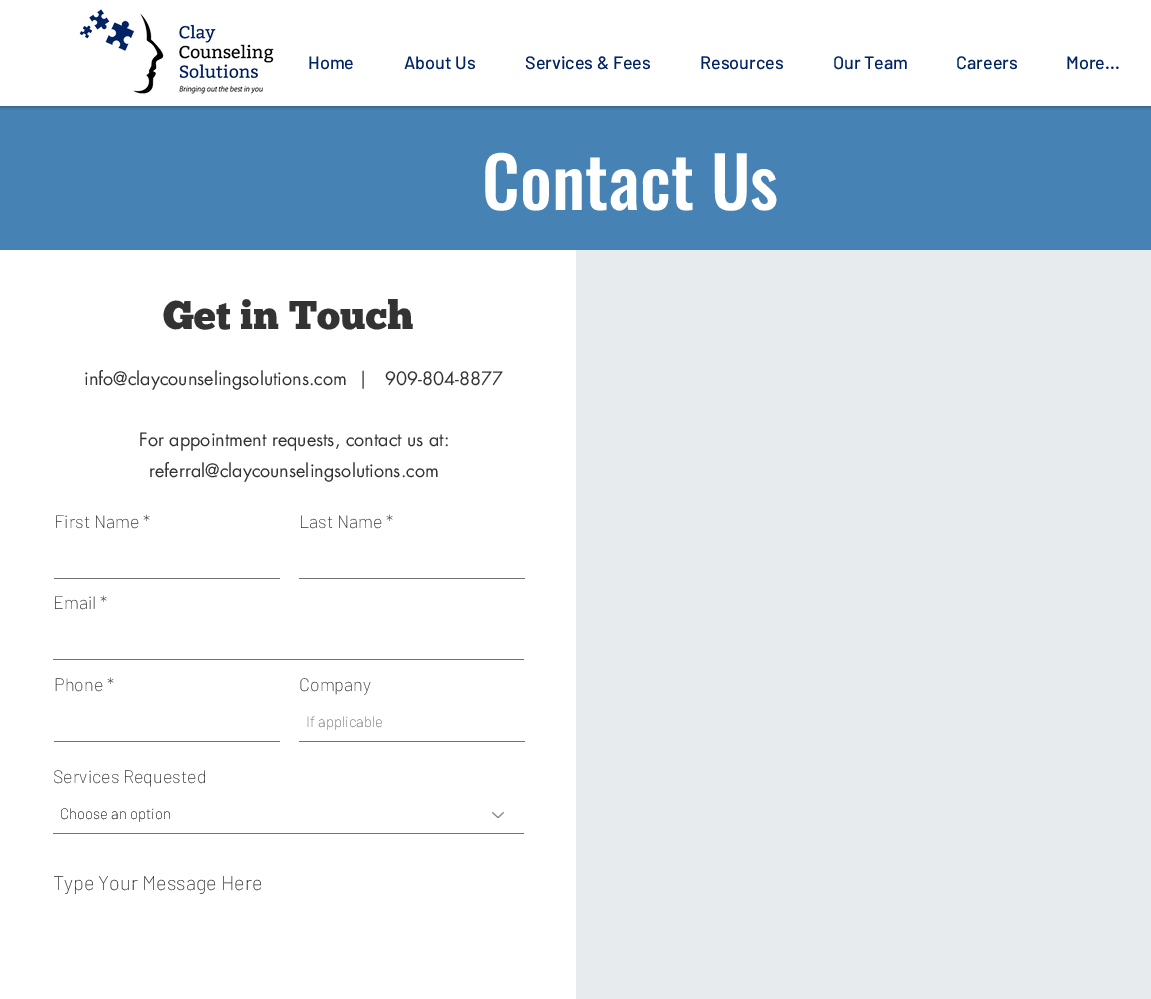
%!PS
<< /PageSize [1151 999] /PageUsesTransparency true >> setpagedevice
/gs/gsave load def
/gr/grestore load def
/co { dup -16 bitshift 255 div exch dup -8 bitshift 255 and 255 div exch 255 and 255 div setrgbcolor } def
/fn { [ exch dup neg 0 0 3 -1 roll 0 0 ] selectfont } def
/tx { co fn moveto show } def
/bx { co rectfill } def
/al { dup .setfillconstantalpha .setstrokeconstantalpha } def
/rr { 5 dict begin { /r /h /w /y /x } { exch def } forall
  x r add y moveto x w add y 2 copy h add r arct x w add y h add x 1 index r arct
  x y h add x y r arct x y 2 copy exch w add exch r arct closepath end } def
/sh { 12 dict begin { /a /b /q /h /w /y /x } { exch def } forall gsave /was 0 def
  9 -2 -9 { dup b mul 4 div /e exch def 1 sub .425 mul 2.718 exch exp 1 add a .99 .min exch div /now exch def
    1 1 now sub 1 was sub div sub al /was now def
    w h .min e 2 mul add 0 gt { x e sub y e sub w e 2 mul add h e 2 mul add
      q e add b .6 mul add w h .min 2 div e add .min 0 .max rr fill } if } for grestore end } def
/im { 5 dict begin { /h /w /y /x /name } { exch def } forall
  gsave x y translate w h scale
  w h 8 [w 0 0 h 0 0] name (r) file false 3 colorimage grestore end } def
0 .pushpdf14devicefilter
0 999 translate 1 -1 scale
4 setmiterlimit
0 0 1151 999 16#FFFFFF bx
0 106 1151 144 16#4682B4 bx
gs
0 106 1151 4 rectclip
16#000000 co
0 0 1151 106 0 2.5 .5 sh
gr
(media/1.raw) 79 9 195 85 im
54 578 226 1 16#737373 bx
299 578 226 1 16#737373 bx
53 659 471 1 16#737373 bx
54 741 226 1 16#737373 bx
299 741 226 1 16#737373 bx
53 833 471 1 16#737373 bx
(media/2.raw) 492 812 12 6 im
576 250 575 749 16#E8EBED bx
(Home) 308 69 /Barlow-Medium 18 16#002365 tx
(About Us) 404 69 /Barlow-Medium 18 16#002365 tx
(Services & Fees) 525 69 /Barlow-Medium 18 16#002365 tx
(Resources) 700 69 /Barlow-Medium 18 16#002365 tx
(Our Team) 833 69 /Barlow-Medium 18 16#002365 tx
(Careers) 956 69 /Barlow-Medium 18 16#002365 tx
(More...) 1066 69 /Barlow-Medium 18 16#002365 tx
(Contact Us) 482 210 /Oswald-Medium 70 16#FFFFFF tx
(Get in Touch) 163 329 /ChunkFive-Regular 40 16#333333 tx
(info@claycounselingsolutions.com  |   909-804-8877) 84 385 /futura-Regular 18 16#333333 tx
(For appointment requests, contact us at:) 139 446 /futura-Regular 18 16#333333 tx
(referral@claycounselingsolutions.com) 149 477 /futura-Regular 18 16#333333 tx
(First Name *) 54 528 /Barlow-ExtraLight 18 16#333333 tx
(Last Name *) 299 528 /Barlow-ExtraLight 18 16#333333 tx
(Email *) 53 609 /Barlow-ExtraLight 18 16#333333 tx
(Phone *) 54 691 /Barlow-ExtraLight 18 16#333333 tx
(Company) 299 691 /Barlow-ExtraLight 18 16#333333 tx
(If applicable) 306 727 /Barlow-ExtraLight 15 16#666666 tx
(Services Requested) 53 783 /Barlow-ExtraLight 18 16#333333 tx
(Choose an option) 60 819 /Barlow-ExtraLight 15 16#000000 tx
(Type Your Message Here) 53 890 /Barlow-ExtraLight 20 16#333333 tx
.poppdf14devicefilter showpage
